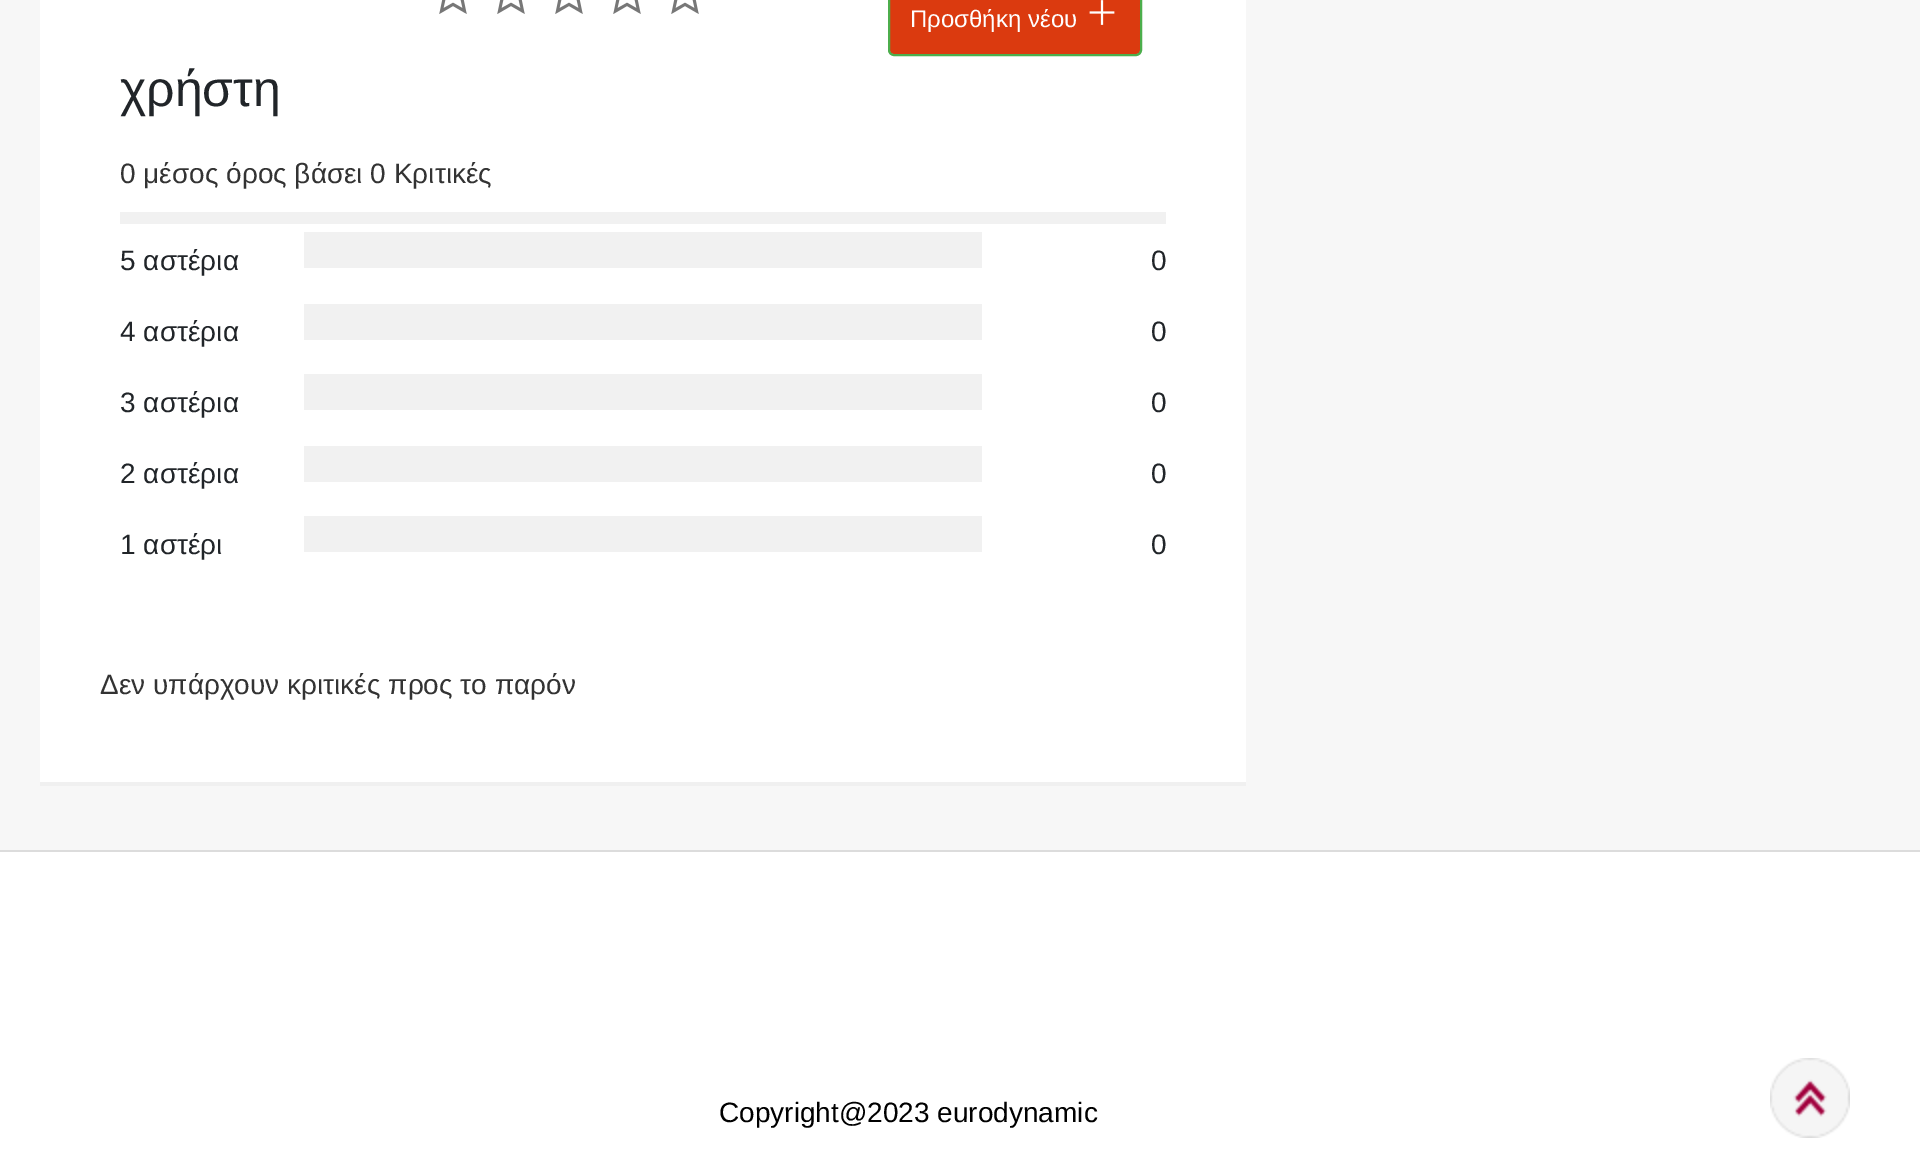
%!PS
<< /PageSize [1920 1152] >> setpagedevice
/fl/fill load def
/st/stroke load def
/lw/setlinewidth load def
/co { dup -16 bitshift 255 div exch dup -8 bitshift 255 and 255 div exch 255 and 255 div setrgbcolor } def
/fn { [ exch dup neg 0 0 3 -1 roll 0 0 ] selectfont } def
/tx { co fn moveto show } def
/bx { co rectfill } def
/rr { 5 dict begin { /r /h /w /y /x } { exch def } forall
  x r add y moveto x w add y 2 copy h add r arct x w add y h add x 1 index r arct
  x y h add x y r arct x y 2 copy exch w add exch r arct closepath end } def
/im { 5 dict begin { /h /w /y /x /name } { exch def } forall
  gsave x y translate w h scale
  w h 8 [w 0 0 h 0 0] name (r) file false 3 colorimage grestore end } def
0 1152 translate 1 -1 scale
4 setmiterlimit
0 0 1920 1152 16#FFFFFF bx
0 0 1920 850 16#F7F7F7 bx
40 782 1206 4 16#F0F0F0 bx
40 0 1206 782 16#FFFFFF bx
16#DB3A0F co
890 -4 250 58 4 rr fl
16#4CAE4C co
2 lw
889 -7 252 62 5 rr st
(media/1.raw) 1089 0 26 25 im
(media/2.raw) 439 0 28 14 im
(media/2.raw) 497 0 28 14 im
(media/2.raw) 555 0 28 14 im
(media/2.raw) 613 0 28 14 im
(media/2.raw) 671 0 28 14 im
120 212 1046 12 16#F1F1F1 bx
304 232 678 36 16#F1F1F1 bx
304 304 678 36 16#F1F1F1 bx
304 374 678 36 16#F1F1F1 bx
304 446 678 36 16#F1F1F1 bx
304 516 678 36 16#F1F1F1 bx
0 850 1920 2 16#DCDCDC bx
(media/3.raw) 1770 1058 80 80 im
(Προσθήκη νέου) 910 27 /LiberationSans-Regular 24 16#FFFFFF tx
(χρήστη) 120 106 /LiberationSans-Regular 50 16#212529 tx
(0 μέσος όρος βάσει 0 Κριτικές) 120 183 /LiberationSans-Regular 28 16#333333 tx
(5 αστέρια) 120 270 /LiberationSans-Regular 28 16#212529 tx
(0) 1151 270 /LiberationSans-Regular 28 16#212529 tx
(4 αστέρια) 120 341 /LiberationSans-Regular 28 16#212529 tx
(0) 1151 341 /LiberationSans-Regular 28 16#212529 tx
(3 αστέρια) 120 412 /LiberationSans-Regular 28 16#212529 tx
(0) 1151 412 /LiberationSans-Regular 28 16#212529 tx
(2 αστέρια) 120 483 /LiberationSans-Regular 28 16#212529 tx
(0) 1151 483 /LiberationSans-Regular 28 16#212529 tx
(1 αστέρι) 120 554 /LiberationSans-Regular 28 16#212529 tx
(0) 1151 554 /LiberationSans-Regular 28 16#212529 tx
(Δεν υπάρχουν κριτικές προς το παρόν) 100 694 /LiberationSans-Regular 28 16#333333 tx
(Copyright@2023 eurodynamic) 719 1122 /LiberationSans-Regular 28 16#000000 tx
showpage
